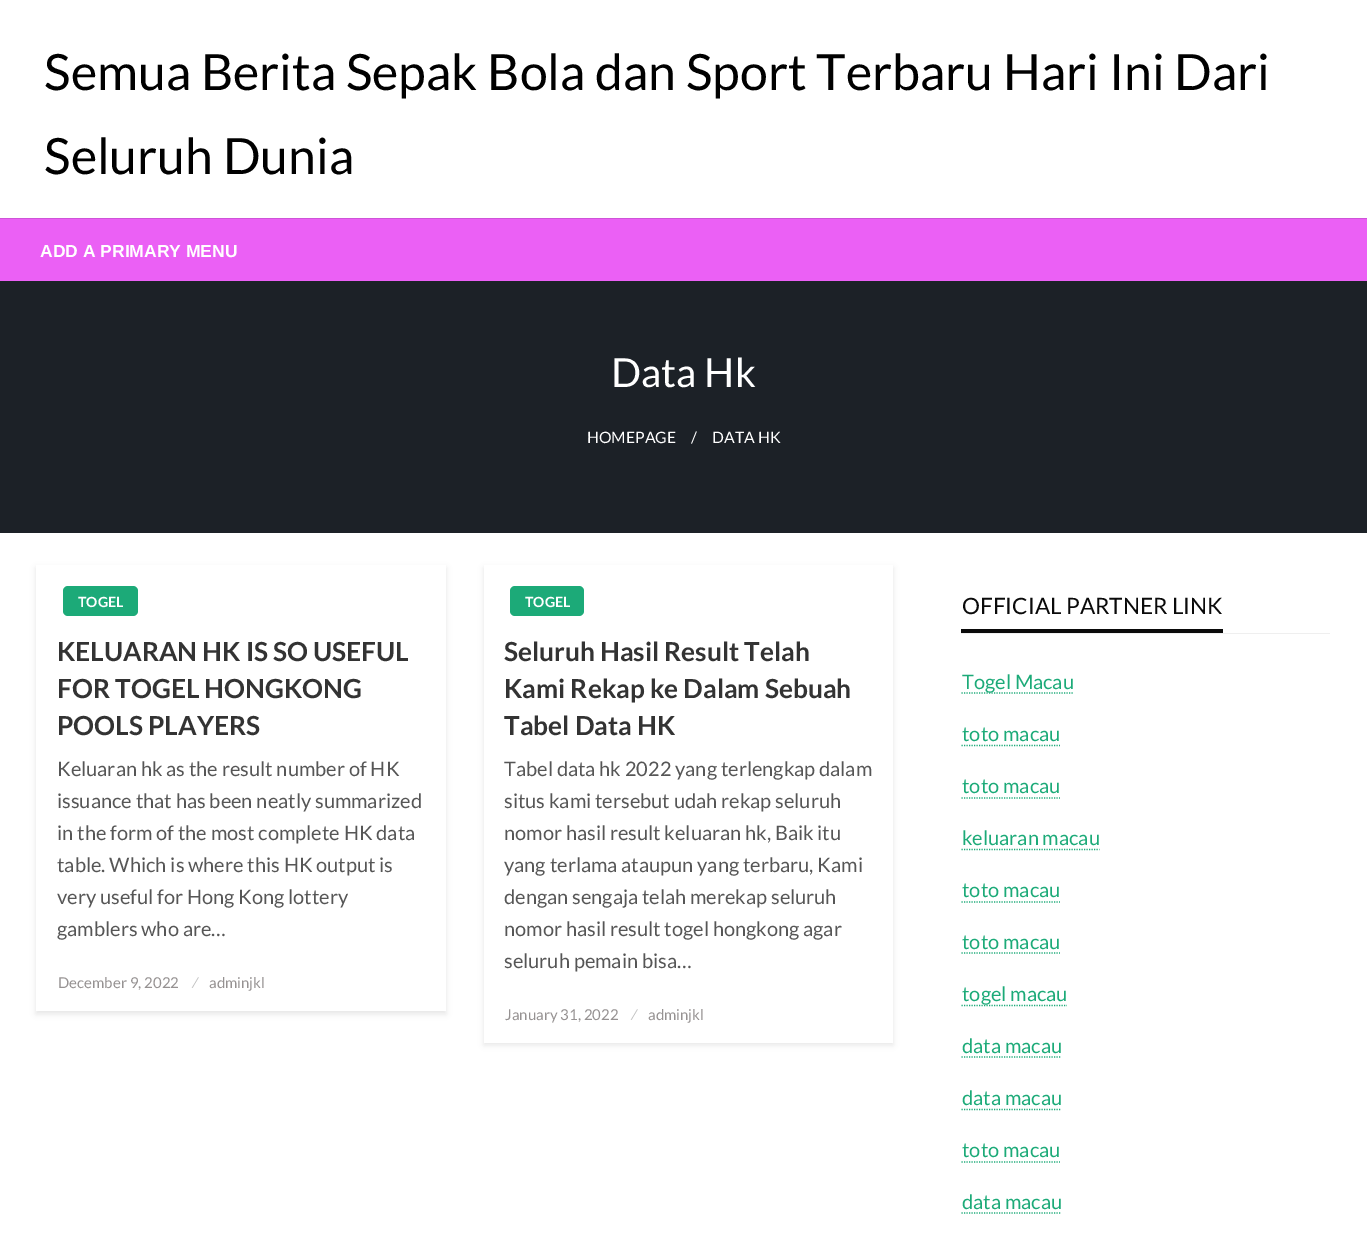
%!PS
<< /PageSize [1367 1241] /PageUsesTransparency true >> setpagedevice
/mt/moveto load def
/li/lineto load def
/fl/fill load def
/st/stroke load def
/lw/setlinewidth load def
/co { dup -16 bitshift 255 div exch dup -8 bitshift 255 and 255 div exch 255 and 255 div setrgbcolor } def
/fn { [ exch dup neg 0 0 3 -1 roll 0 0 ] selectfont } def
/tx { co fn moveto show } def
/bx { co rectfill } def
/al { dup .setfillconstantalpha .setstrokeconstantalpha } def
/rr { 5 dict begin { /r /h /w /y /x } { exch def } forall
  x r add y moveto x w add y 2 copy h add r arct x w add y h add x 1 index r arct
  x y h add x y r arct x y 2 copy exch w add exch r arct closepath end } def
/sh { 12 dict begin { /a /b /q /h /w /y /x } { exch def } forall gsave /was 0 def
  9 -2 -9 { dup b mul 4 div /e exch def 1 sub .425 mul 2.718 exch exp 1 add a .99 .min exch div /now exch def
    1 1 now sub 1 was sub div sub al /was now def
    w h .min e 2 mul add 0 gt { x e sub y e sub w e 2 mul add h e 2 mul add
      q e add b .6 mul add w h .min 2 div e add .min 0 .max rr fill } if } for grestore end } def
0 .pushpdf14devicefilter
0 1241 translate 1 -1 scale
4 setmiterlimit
0 0 1367 1241 16#FFFFFF bx
0 219 1367 62 16#EB60F5 bx
0 218 1367 1 16#CF54D8 bx
0 281 1367 252 16#1C2127 bx
16#000000 co
36 568 410 446 0 3 .1 sh
36 565 410 446 16#FFFFFF bx
16#1CAA78 co
63 586 75 30 5 rr fl
16#000000 co
484 568 409 477 0 3 .1 sh
484 565 409 478 16#FFFFFF bx
16#1CAA78 co
510 586 74 30 5 rr fl
961 633 369 1 16#EFEFEF bx
961 629 262 4 16#0A0A0A bx
16#1CAA78 co
1.2 lw
[1.25 1.25] 0 setdash
961.5 693 mt 1073.5 693 li st
961.5 745.5 mt 1060 745.5 li st
961.5 798 mt 1060 798 li st
961.5 849.5 mt 1099.5 849.5 li st
961.5 902 mt 1060 902 li st
961.5 953 mt 1060 953 li st
961.5 1005.5 mt 1067 1005.5 li st
961.5 1057 mt 1061.5 1057 li st
961.5 1109.5 mt 1061.5 1109.5 li st
961.5 1162 mt 1060 1162 li st
961.5 1213 mt 1061.5 1213 li st
(Semua Berita Sepak Bola dan Sport Terbaru Hari Ini Dari) 44 90 /Lato-Regular 50 16#000000 tx
(Seluruh Dunia) 44 174 /Lato-Regular 50 16#000000 tx
(ADD A PRIMARY MENU) 40 257 /LiberationSans-Bold 17.5 16#FFFFFF tx
(Data Hk) 611 387 /Lato-Regular 40 16#FFFFFF tx
(HOMEPAGE) 587 443 /Lato-Regular 15.75 16#FFFFFF tx
(/) 691 443 /Lato-Regular 15.75 16#FFFFFF tx
(DATA HK) 712 443 /Lato-Regular 15.75 16#FFFFFF tx
(TOGEL) 78 607 /Lato-Bold 14 16#FFFFFF tx
(KELUARAN HK IS SO USEFUL) 57 661 /Lato-Bold 26.25 16#333333 tx
(FOR TOGEL HONGKONG) 57 698 /Lato-Bold 26.25 16#333333 tx
(POOLS PLAYERS) 57 735 /Lato-Bold 26.25 16#333333 tx
(Keluaran hk as the result number of HK) 57 776 /Lato-Regular 20 16#565656 tx
(issuance that has been neatly summarized) 57 808 /Lato-Regular 20 16#565656 tx
(in the form of the most complete HK data) 57 840 /Lato-Regular 20 16#565656 tx
(table. Which is where this HK output is) 57 872 /Lato-Regular 20 16#565656 tx
(very useful for Hong Kong lottery) 57 904 /Lato-Regular 20 16#565656 tx
(gamblers who are…) 57 936 /Lato-Regular 20 16#565656 tx
(December 9, 2022) 58 988 /Lato-Regular 15 16#969292 tx
(⁄) 193 988 /Lato-Regular 15 16#C0C0C0 tx
(adminjkl) 209 988 /Lato-Regular 15 16#969292 tx
(TOGEL) 525 607 /Lato-Bold 14 16#FFFFFF tx
(Seluruh Hasil Result Telah) 504 661 /Lato-Bold 26.25 16#333333 tx
(Kami Rekap ke Dalam Sebuah) 504 698 /Lato-Bold 26.25 16#333333 tx
(Tabel Data HK) 504 735 /Lato-Bold 26.25 16#333333 tx
(Tabel data hk 2022 yang terlengkap dalam) 504 776 /Lato-Regular 20 16#565656 tx
(situs kami tersebut udah rekap seluruh) 504 808 /Lato-Regular 20 16#565656 tx
(nomor hasil result keluaran hk, Baik itu) 504 840 /Lato-Regular 20 16#565656 tx
(yang terlama ataupun yang terbaru, Kami) 504 872 /Lato-Regular 20 16#565656 tx
(dengan sengaja telah merekap seluruh) 504 904 /Lato-Regular 20 16#565656 tx
(nomor hasil result togel hongkong agar) 504 936 /Lato-Regular 20 16#565656 tx
(seluruh pemain bisa…) 504 968 /Lato-Regular 20 16#565656 tx
(January 31, 2022) 505 1020 /Lato-Regular 15 16#969292 tx
(⁄) 632 1020 /Lato-Regular 15 16#C0C0C0 tx
(adminjkl) 648 1020 /Lato-Regular 15 16#969292 tx
(OFFICIAL PARTNER LINK) 962 614 /Lato-Regular 22.5 16#0A0A0A tx
(Togel Macau) 962 689 /Lato-Regular 20 16#1CAA78 tx
(toto macau) 962 741 /Lato-Regular 20 16#1CAA78 tx
(toto macau) 962 793 /Lato-Regular 20 16#1CAA78 tx
(keluaran macau) 962 845 /Lato-Regular 20 16#1CAA78 tx
(toto macau) 962 897 /Lato-Regular 20 16#1CAA78 tx
(toto macau) 962 949 /Lato-Regular 20 16#1CAA78 tx
(togel macau) 962 1001 /Lato-Regular 20 16#1CAA78 tx
(data macau) 962 1053 /Lato-Regular 20 16#1CAA78 tx
(data macau) 962 1105 /Lato-Regular 20 16#1CAA78 tx
(toto macau) 962 1157 /Lato-Regular 20 16#1CAA78 tx
(data macau) 962 1209 /Lato-Regular 20 16#1CAA78 tx
.poppdf14devicefilter showpage
